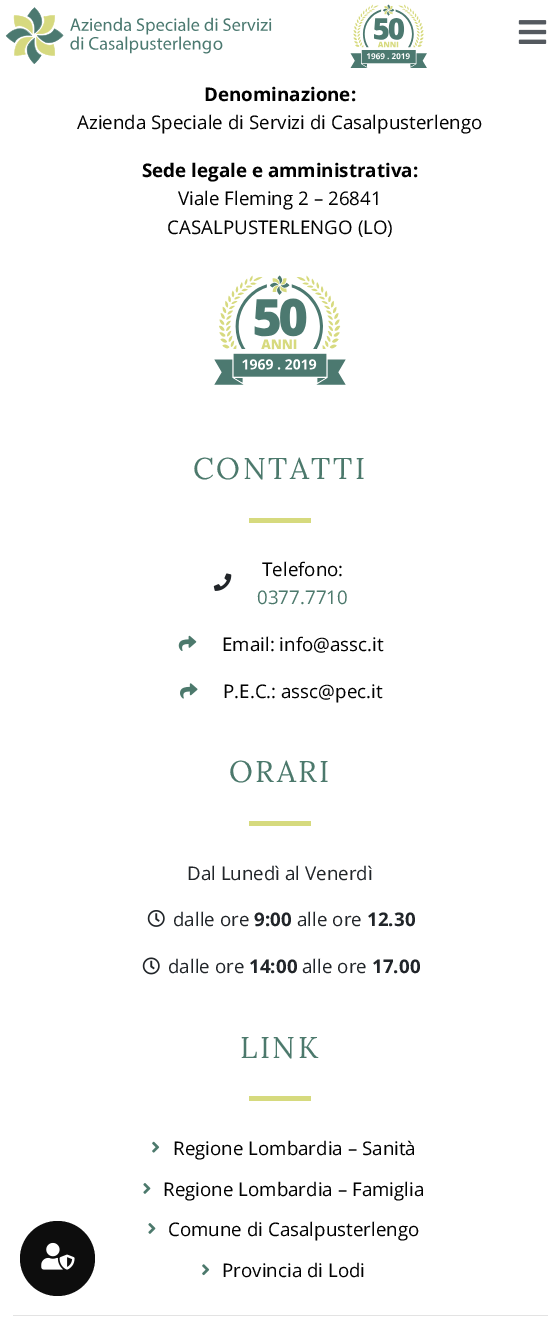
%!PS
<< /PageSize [560 1321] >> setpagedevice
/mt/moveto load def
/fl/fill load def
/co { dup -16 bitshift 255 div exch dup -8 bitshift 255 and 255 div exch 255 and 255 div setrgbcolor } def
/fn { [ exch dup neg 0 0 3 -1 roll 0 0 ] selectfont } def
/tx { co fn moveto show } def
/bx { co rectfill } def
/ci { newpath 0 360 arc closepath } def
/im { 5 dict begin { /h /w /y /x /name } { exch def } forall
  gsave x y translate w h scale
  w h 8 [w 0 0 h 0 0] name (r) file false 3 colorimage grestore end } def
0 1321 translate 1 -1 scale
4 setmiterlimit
0 0 560 1321 16#FFFFFF bx
16#0D0D0D co
57.5 1258.5 37.5 ci fl
(media/1.raw) 41 1242 34 28 im
(media/2.raw) 5 7 267 57 im
(media/3.raw) 350 4 77 64 im
(media/4.raw) 518 20 29 24 im
(media/5.raw) 214 275 132 110 im
249 518 62 5 16#D6DA7E bx
(media/6.raw) 213 573 19 18 im
(media/7.raw) 178 635 19 16 im
(media/8.raw) 180 683 18 16 im
249 821 62 5 16#D6DA7E bx
(media/9.raw) 147 910 18 17 im
(media/10.raw) 142 957 18 18 im
249 1096 62 5 16#D6DA7E bx
(media/11.raw) 152 1141 8 12 im
(media/12.raw) 143 1183 8 11 im
(media/12.raw) 148 1223 8 11 im
(media/13.raw) 202 1264 8 12 im
13 1315 535 1 16#E3E3E3 bx
(Denominazione:) 204 101 /OpenSans-Bold 18.75 16#010101 tx
(Azienda Speciale di Servizi di Casalpusterlengo) 77 129 /OpenSans-Regular 18.75 16#010101 tx
(Sede legale e amministrativa:) 142 177 /OpenSans-Bold 18.75 16#010101 tx
(Viale Fleming 2 – 26841) 178 205 /OpenSans-Regular 18.75 16#010101 tx
(CASALPUSTERLENGO \(LO\)) 167 234 /OpenSans-Regular 18.75 16#010101 tx
/Lora-Regular 30 fn
16#4C796C co
193 479 mt 2.5 0 (CONTATTI) ashow
(Telefono:) 262 576 /OpenSans-Regular 18.75 16#010101 tx
(0377.7710) 257 604 /OpenSans-Regular 18.75 16#4C796C tx
(Email: info@assc.it) 222 651 /OpenSans-Regular 18.75 16#010101 tx
(P.E.C.: assc@pec.it) 223 698 /OpenSans-Regular 18.75 16#010101 tx
/Lora-Regular 30 fn
16#4C796C co
229 782 mt 2.5 0 (ORARI) ashow
(Dal Lunedì al Venerdì) 187 880 /OpenSans-Regular 18.75 16#212529 tx
(dalle ore) 173 926 /OpenSans-Regular 18.75 16#212529 tx
(9:00) 254 926 /OpenSans-Bold 18.75 16#212529 tx
(alle ore) 297 926 /OpenSans-Regular 18.75 16#212529 tx
(12.30) 367 926 /OpenSans-Bold 18.75 16#212529 tx
(dalle ore) 168 973 /OpenSans-Regular 18.75 16#212529 tx
(14:00) 249 973 /OpenSans-Bold 18.75 16#212529 tx
(alle ore) 302 973 /OpenSans-Regular 18.75 16#212529 tx
(17.00) 372 973 /OpenSans-Bold 18.75 16#212529 tx
/Lora-Regular 30 fn
16#4C796C co
240 1058 mt 2.5 0 (LINK) ashow
(Regione Lombardia – Sanità) 173 1155 /OpenSans-Regular 18.75 16#010101 tx
(Regione Lombardia – Famiglia) 163 1196 /OpenSans-Regular 18.75 16#010101 tx
(Comune di Casalpusterlengo) 168 1236 /OpenSans-Regular 18.75 16#010101 tx
(Provincia di Lodi) 222 1277 /OpenSans-Regular 18.75 16#010101 tx
showpage
